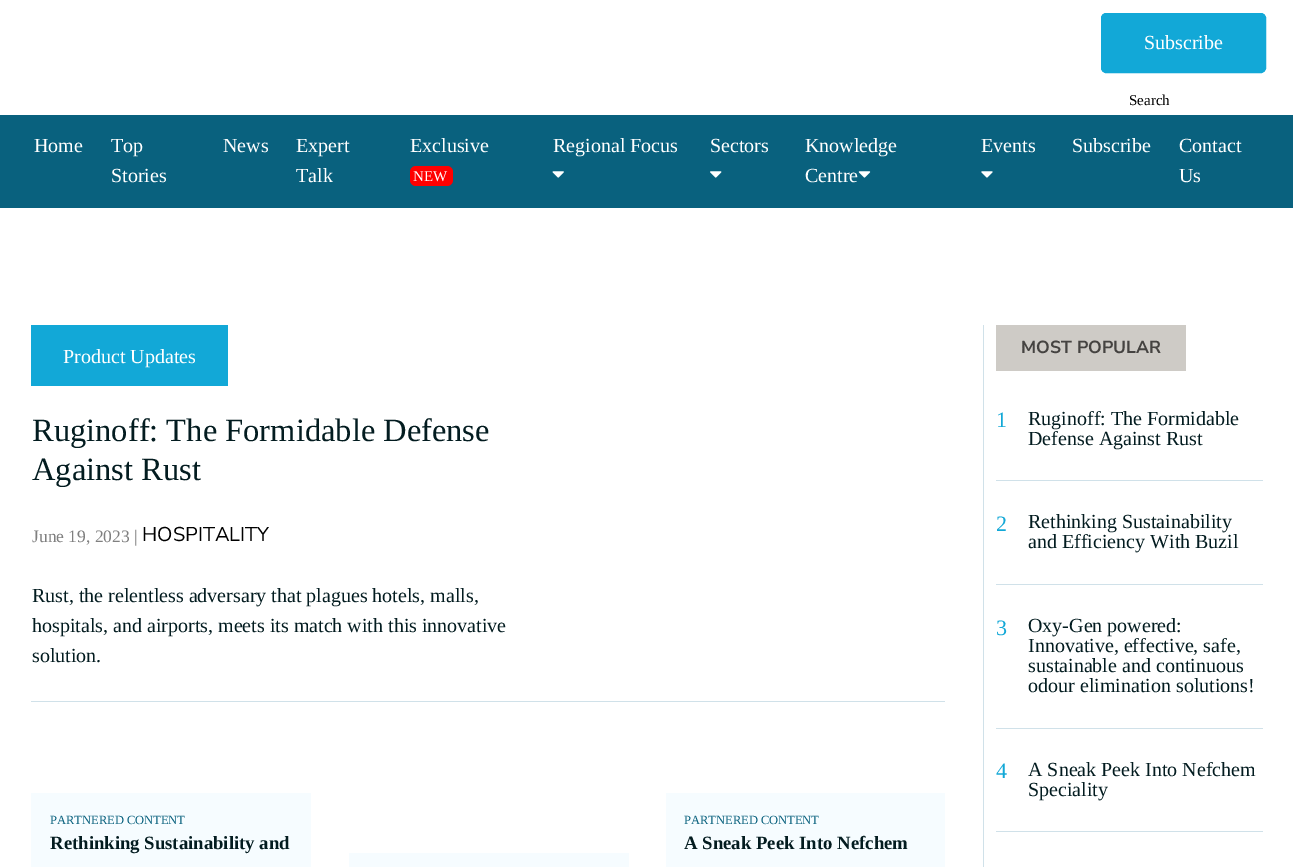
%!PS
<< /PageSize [1293 867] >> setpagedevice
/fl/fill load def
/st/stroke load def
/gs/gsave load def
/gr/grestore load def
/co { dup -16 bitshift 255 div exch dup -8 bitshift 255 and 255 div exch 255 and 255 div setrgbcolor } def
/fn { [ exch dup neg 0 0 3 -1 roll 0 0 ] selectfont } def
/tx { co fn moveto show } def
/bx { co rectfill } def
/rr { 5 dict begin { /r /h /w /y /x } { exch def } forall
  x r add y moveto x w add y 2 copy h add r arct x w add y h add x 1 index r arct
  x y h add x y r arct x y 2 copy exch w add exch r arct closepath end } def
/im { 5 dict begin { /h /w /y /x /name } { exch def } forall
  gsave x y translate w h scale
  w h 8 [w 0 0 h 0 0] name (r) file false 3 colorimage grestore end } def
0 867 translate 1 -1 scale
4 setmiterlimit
0 0 1293 867 16#FFFFFF bx
16#12A8D7 co
1101.5 13.5 164 59 4.5 rr gs fl gr
st
0 115 1293 93 16#09617E bx
16#FF0000 co
410 166 43 20 6 rr fl
(media/1.raw) 552 171 12 7 im
(media/2.raw) 710 171 12 7 im
(media/3.raw) 858 171 13 7 im
(media/4.raw) 981 171 12 7 im
31 325 197 61 16#12A8D7 bx
31 701 914 1 16#D0E1E9 bx
31 793 280 74 16#F6FCFF bx
666 793 279 74 16#F6FCFF bx
349 853 280 14 16#F6FCFF bx
983 325 1 542 16#D0E1E9 bx
996 325 190 46 16#CECBC6 bx
996 480 267 1 16#D0E1E9 bx
996 584 267 1 16#D0E1E9 bx
996 728 267 1 16#D0E1E9 bx
996 831 267 1 16#D0E1E9 bx
(Subscribe) 1144 49 /LiberationSerif-Regular 20 16#FFFFFF tx
(Search) 1129 105 /LiberationSerif-Regular 15 16#000000 tx
(Home) 34 152 /LiberationSerif-Regular 20 16#FFFFFF tx
(Top) 111 152 /LiberationSerif-Regular 20 16#FFFFFF tx
(Stories) 111 182 /LiberationSerif-Regular 20 16#FFFFFF tx
(News) 223 152 /LiberationSerif-Regular 20 16#FFFFFF tx
(Expert) 296 152 /LiberationSerif-Regular 20 16#FFFFFF tx
(Talk) 296 182 /LiberationSerif-Regular 20 16#FFFFFF tx
(Exclusive) 410 152 /LiberationSerif-Regular 20 16#FFFFFF tx
(NEW) 413 181 /LiberationSerif-Regular 15 16#FFFFFF tx
(Regional Focus) 553 152 /LiberationSerif-Regular 20 16#FFFFFF tx
(Sectors) 710 152 /LiberationSerif-Regular 20 16#FFFFFF tx
(Knowledge) 805 152 /LiberationSerif-Regular 20 16#FFFFFF tx
(Centre) 805 182 /LiberationSerif-Regular 20 16#FFFFFF tx
(Events) 981 152 /LiberationSerif-Regular 20 16#FFFFFF tx
(Subscribe) 1072 152 /LiberationSerif-Regular 20 16#FFFFFF tx
(Contact) 1179 152 /LiberationSerif-Regular 20 16#FFFFFF tx
(Us) 1179 182 /LiberationSerif-Regular 20 16#FFFFFF tx
(Product Updates) 63 363 /LiberationSerif-Regular 20 16#FFFFFF tx
(Ruginoff: The Formidable Defense) 32 441 /LiberationSerif-Regular 32.5 16#031C20 tx
(Against Rust) 32 480 /LiberationSerif-Regular 32.5 16#031C20 tx
(June 19, 2023 |) 32 542 /LiberationSerif-Regular 17.5 16#808080 tx
(HOSPITALITY) 142 541 /NunitoSans-Regular 20 16#000000 tx
(Rust, the relentless adversary that plagues hotels, malls,) 32 602 /LiberationSerif-Regular 20 16#031C20 tx
(hospitals, and airports, meets its match with this innovative) 32 632 /LiberationSerif-Regular 20 16#031C20 tx
(solution.) 32 662 /LiberationSerif-Regular 20 16#031C20 tx
(PARTNERED CONTENT) 50 824 /LiberationSerif-Regular 12.5 16#09617E tx
(Rethinking Sustainability and) 50 849 /LiberationSerif-Bold 18.75 16#031C20 tx
(PARTNERED CONTENT) 684 824 /LiberationSerif-Regular 12.5 16#09617E tx
(A Sneak Peek Into Nefchem) 684 849 /LiberationSerif-Bold 18.75 16#031C20 tx
(MOST POPULAR) 1021 353 /NunitoSans-Bold 17.5 16#454341 tx
(1) 996 427 /LiberationSerif-Regular 22 16#12A8D7 tx
(Ruginoff: The Formidable) 1028 425 /LiberationSerif-Regular 20 16#031C20 tx
(Defense Against Rust) 1028 445 /LiberationSerif-Regular 20 16#031C20 tx
(2) 996 531 /LiberationSerif-Regular 22 16#12A8D7 tx
(Rethinking Sustainability) 1028 528 /LiberationSerif-Regular 20 16#031C20 tx
(and Efficiency With Buzil) 1028 548 /LiberationSerif-Regular 20 16#031C20 tx
(3) 996 635 /LiberationSerif-Regular 22 16#12A8D7 tx
(Oxy-Gen powered:) 1028 632 /LiberationSerif-Regular 20 16#031C20 tx
(Innovative, effective, safe,) 1028 652 /LiberationSerif-Regular 20 16#031C20 tx
(sustainable and continuous) 1028 672 /LiberationSerif-Regular 20 16#031C20 tx
(odour elimination solutions!) 1028 692 /LiberationSerif-Regular 20 16#031C20 tx
(4) 996 778 /LiberationSerif-Regular 22 16#12A8D7 tx
(A Sneak Peek Into Nefchem) 1028 776 /LiberationSerif-Regular 20 16#031C20 tx
(Speciality) 1028 796 /LiberationSerif-Regular 20 16#031C20 tx
showpage
